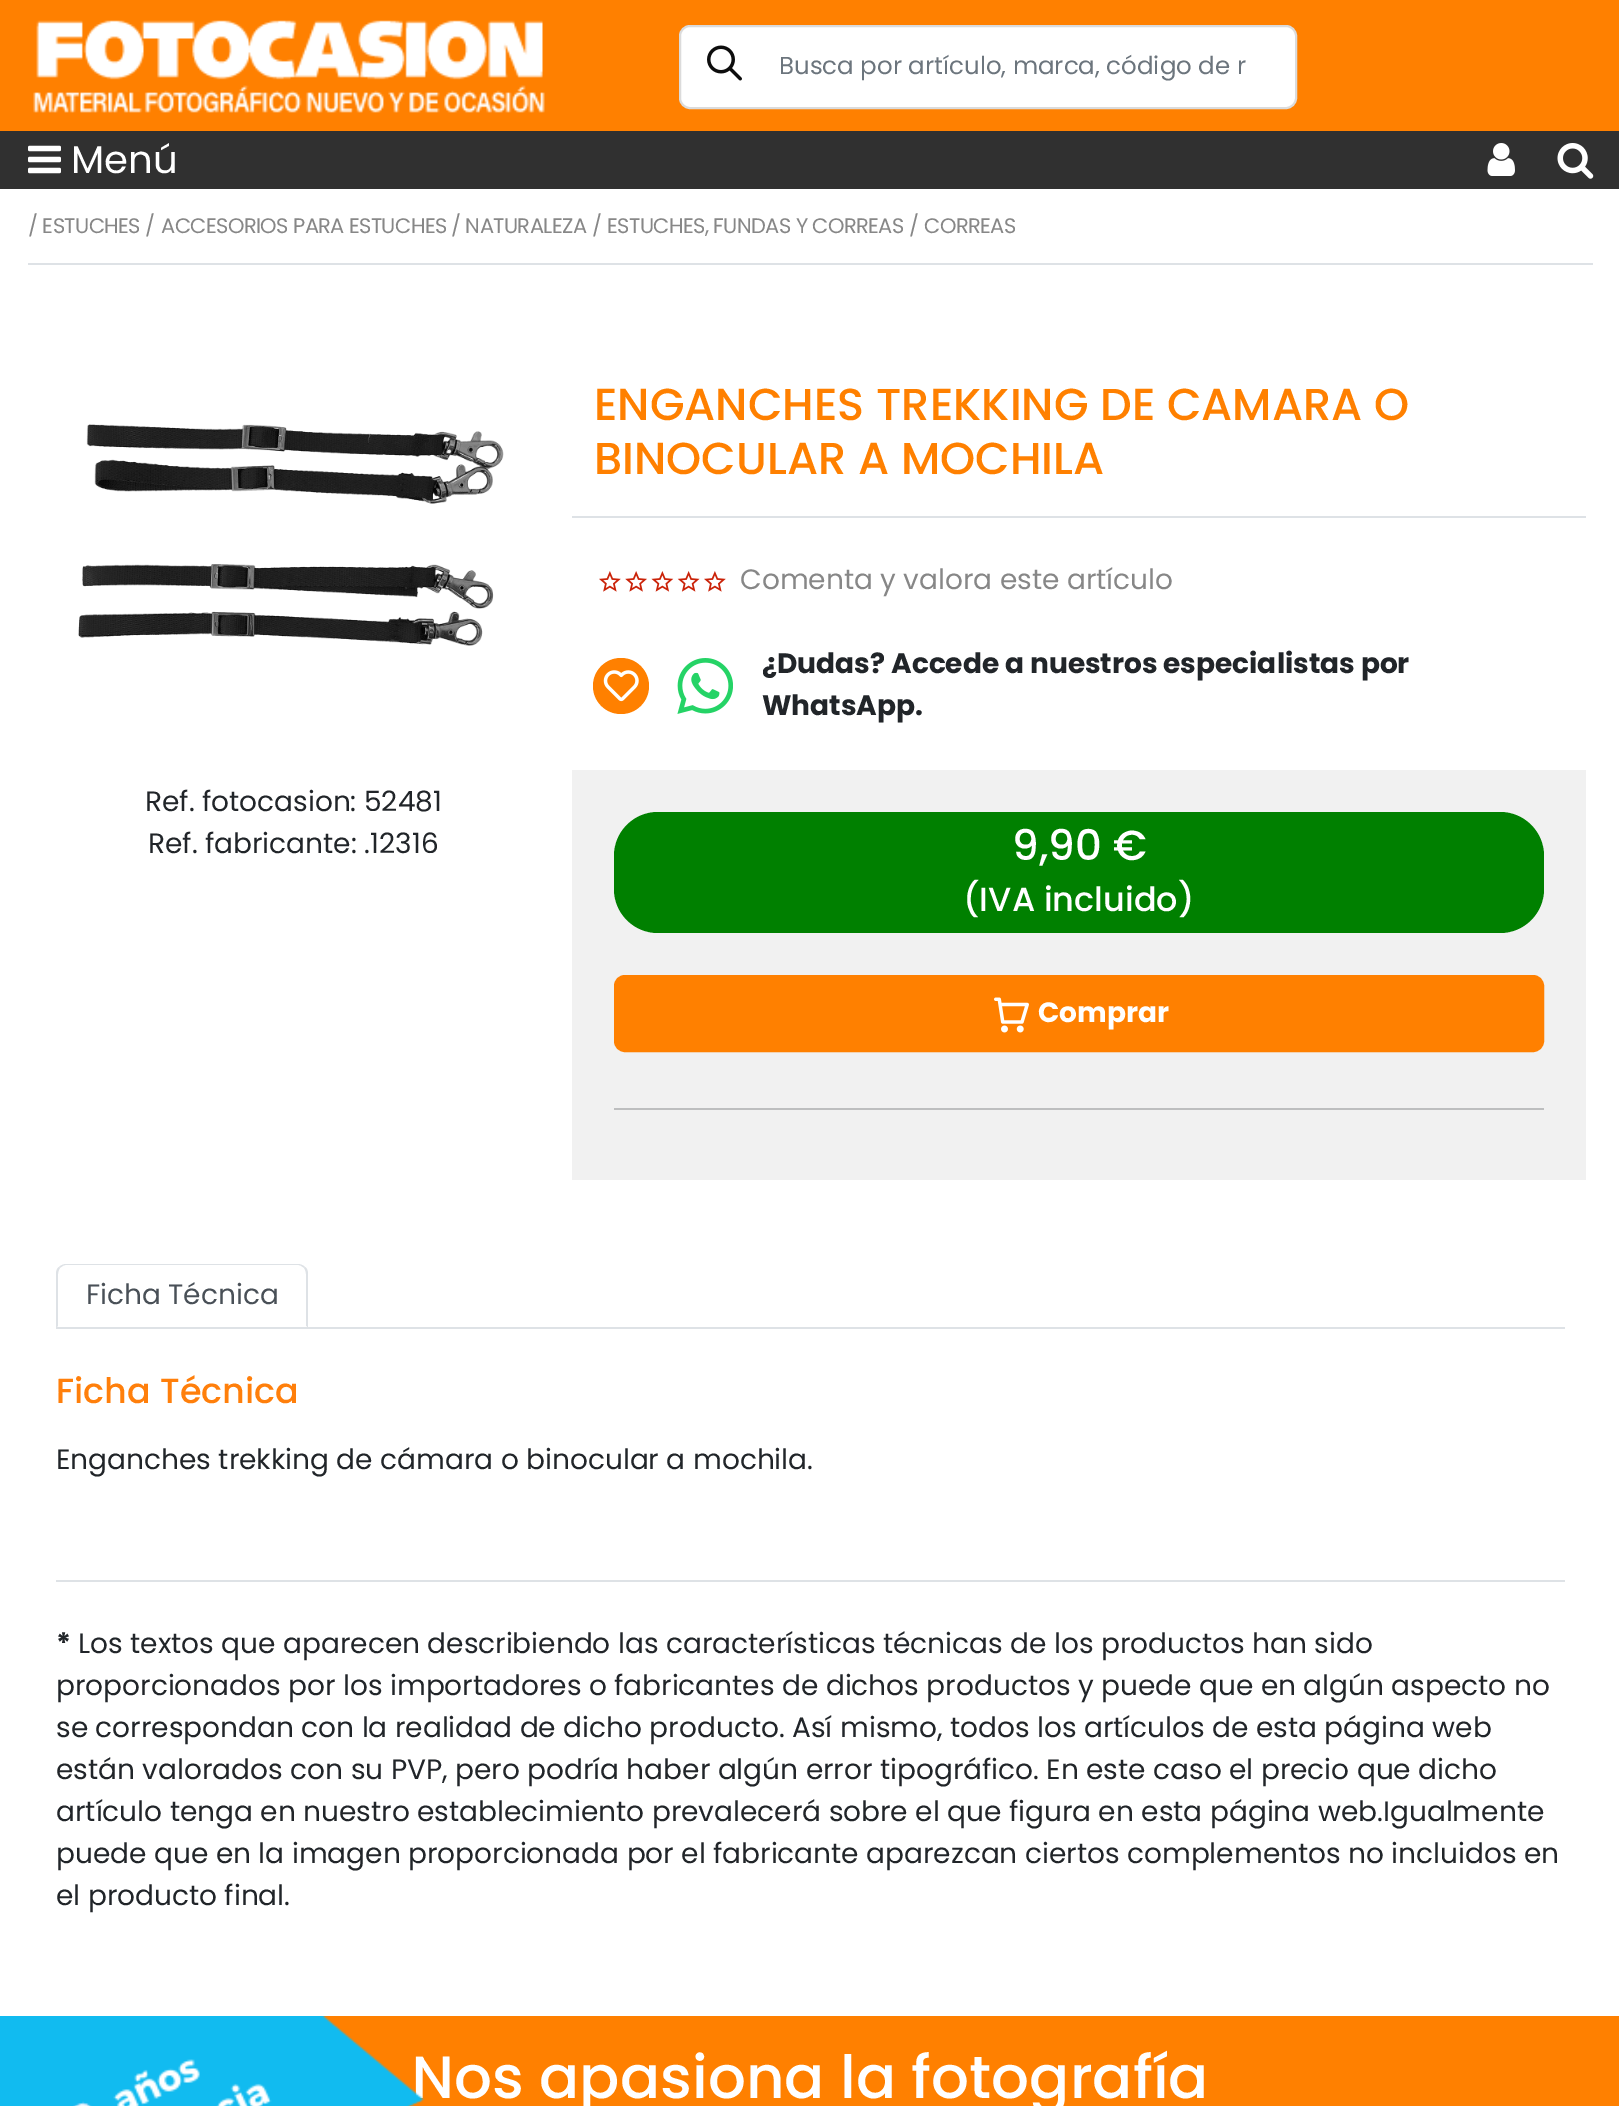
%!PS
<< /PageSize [1619 2106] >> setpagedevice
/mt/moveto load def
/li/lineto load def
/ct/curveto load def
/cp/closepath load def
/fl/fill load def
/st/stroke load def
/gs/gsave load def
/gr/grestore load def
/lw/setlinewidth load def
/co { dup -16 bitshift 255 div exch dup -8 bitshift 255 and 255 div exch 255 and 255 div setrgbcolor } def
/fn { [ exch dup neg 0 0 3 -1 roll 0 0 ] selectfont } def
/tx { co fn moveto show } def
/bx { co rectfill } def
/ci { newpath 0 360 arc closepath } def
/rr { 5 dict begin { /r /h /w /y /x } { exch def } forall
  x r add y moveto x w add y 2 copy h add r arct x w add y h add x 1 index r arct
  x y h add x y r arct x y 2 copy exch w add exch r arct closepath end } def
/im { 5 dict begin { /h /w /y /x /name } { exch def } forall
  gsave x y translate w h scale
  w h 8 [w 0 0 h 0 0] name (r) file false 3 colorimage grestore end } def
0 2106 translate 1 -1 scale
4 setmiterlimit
0 0 1619 2106 16#FFFFFF bx
0 0 1619 131 16#FF8000 bx
(media/1.raw) 33 20 512 93 im
16#FFFFFF co
680 26 616 82 10 rr gs fl gr
16#DBDBDB co
2 lw
st
(media/2.raw) 707 45 35 36 im
0 131 1619 58 16#303030 bx
(media/3.raw) 28 145 33 29 im
(media/4.raw) 1487 143 28 33 im
(media/5.raw) 1557 143 37 36 im
28 263 1565 2 16#DEE2E6 bx
(media/6.raw) 78 424 426 222 im
572 516 1014 2 16#DEE2E6 bx
(media/7.raw) 599 571 127 21 im
16#FF8000 co
621 686 28 ci fl
(media/8.raw) 603 670 36 32 im
(media/9.raw) 677 658 56 56 im
572 770 1014 410 16#F1F1F1 bx
16#008000 co
614 812 930 121 44 rr fl
16#FF8000 co
616 977 926 73 9 rr gs fl gr
4 lw
st
(media/10.raw) 994 997 35 36 im
614 1108 930 2 16#BDBEBF bx
56 1327 1509 2 16#DEE2E6 bx
66 1264 mt 64 1264 61 1265 59 1267 ct 60 1268 li 62 1266 64 1265 66 1265 ct 298 1265 li 300 1265 302 1266 304 1268 ct 305 1267 li 303 1265 300 1264 298 1264 ct cp fl
305 1267 mt 307 1268 308 1271 308 1274 ct 308 1328 li 306 1326 li 306 1274 li 306 1272 305 1269 304 1268 ct cp fl
gs
56 1264 1509 63 rectclip
16#FFFFFF co
308 1328 mt 56 1328 li 58 1326 li 306 1326 li cp fl
gr
56 1274 mt 56 1328 li 58 1326 li 58 1274 li 58 1272 59 1269 60 1268 ct 59 1267 li 57 1268 56 1271 56 1274 ct cp fl
56 1580 1509 2 16#DEE2E6 bx
321 2016 1298 90 16#FF8000 bx
(Busca por artículo, marca, código de r) 779 74 /Poppins-Regular 24.5 16#6C757D tx
(Menú) 71 173 /Poppins-Regular 38.5 16#FFFFFF tx
/Poppins-Regular 21 fn
16#878787 co
28 233 mt -.6 0 (/ ESTUCHES) ashow
(/) 145 233 /Poppins-Regular 21 16#878787 tx
161 233 mt -.6 0 (ACCESORIOS PARA ESTUCHES) ashow
451 233 mt -.6 0 (/ NATURALEZA) ashow
(/) 592 233 /Poppins-Regular 21 16#878787 tx
607 233 mt -.6 0 (ESTUCHES, FUNDAS Y CORREAS) ashow
(/) 909 233 /Poppins-Regular 21 16#878787 tx
924 233 mt -.6 0 (CORREAS) ashow
(Ref. fotocasion: 52481) 145 811 /Poppins-Regular 28 16#212529 tx
(Ref. fabricante: .12316) 148 853 /Poppins-Regular 28 16#212529 tx
(ENGANCHES TREKKING DE CAMARA O) 594 420 /Poppins-Medium 44.75 16#FF8000 tx
(BINOCULAR A MOCHILA) 594 474 /Poppins-Medium 44.75 16#FF8000 tx
(Comenta y valora este artículo) 740 589 /Poppins-Regular 28 16#878787 tx
(¿Dudas? Accede a nuestros especialistas por) 762 673 /Poppins-Bold 28 16#212529 tx
(WhatsApp.) 762 715 /Poppins-Bold 28 16#212529 tx
(9,90 €) 1012 860 /Poppins-Medium 42 16#FFFFFF tx
(\(IVA incluido\)) 963 911 /Poppins-Medium 33.5 16#FFFFFF tx
(Comprar) 1038 1022 /Poppins-Bold 28 16#FFFFFF tx
(Ficha Técnica) 86 1304 /Poppins-Regular 28 16#495057 tx
(Ficha Técnica) 56 1403 /Poppins-Medium 35 16#FF7F0B tx
(Enganches trekking de cámara o binocular a mochila.) 56 1469 /Poppins-Regular 28 16#212529 tx
(*) 56 1653 /Poppins-Bold 28 16#212529 tx
(Los textos que aparecen describiendo las características técnicas de los productos han sido) 78 1653 /Poppins-Regular 28 16#212529 tx
(proporcionados por los importadores o fabricantes de dichos productos y puede que en algún aspecto no) 56 1695 /Poppins-Regular 28 16#212529 tx
(se correspondan con la realidad de dicho producto. Así mismo, todos los artículos de esta página web) 56 1737 /Poppins-Regular 28 16#212529 tx
(están valorados con su PVP, pero podría haber algún error tipográfico. En este caso el precio que dicho) 56 1779 /Poppins-Regular 28 16#212529 tx
(artículo tenga en nuestro establecimiento prevalecerá sobre el que figura en esta página web.Igualmente) 56 1821 /Poppins-Regular 28 16#212529 tx
(puede que en la imagen proporcionada por el fabricante aparezcan ciertos complementos no incluidos en) 56 1863 /Poppins-Regular 28 16#212529 tx
(el producto final.) 56 1905 /Poppins-Regular 28 16#212529 tx
(Nos apasiona la fotografía) 411 2098 /Poppins-Medium 59.5 16#FFFFFF tx
(media/11.raw) 0 2016 424 90 im
showpage
